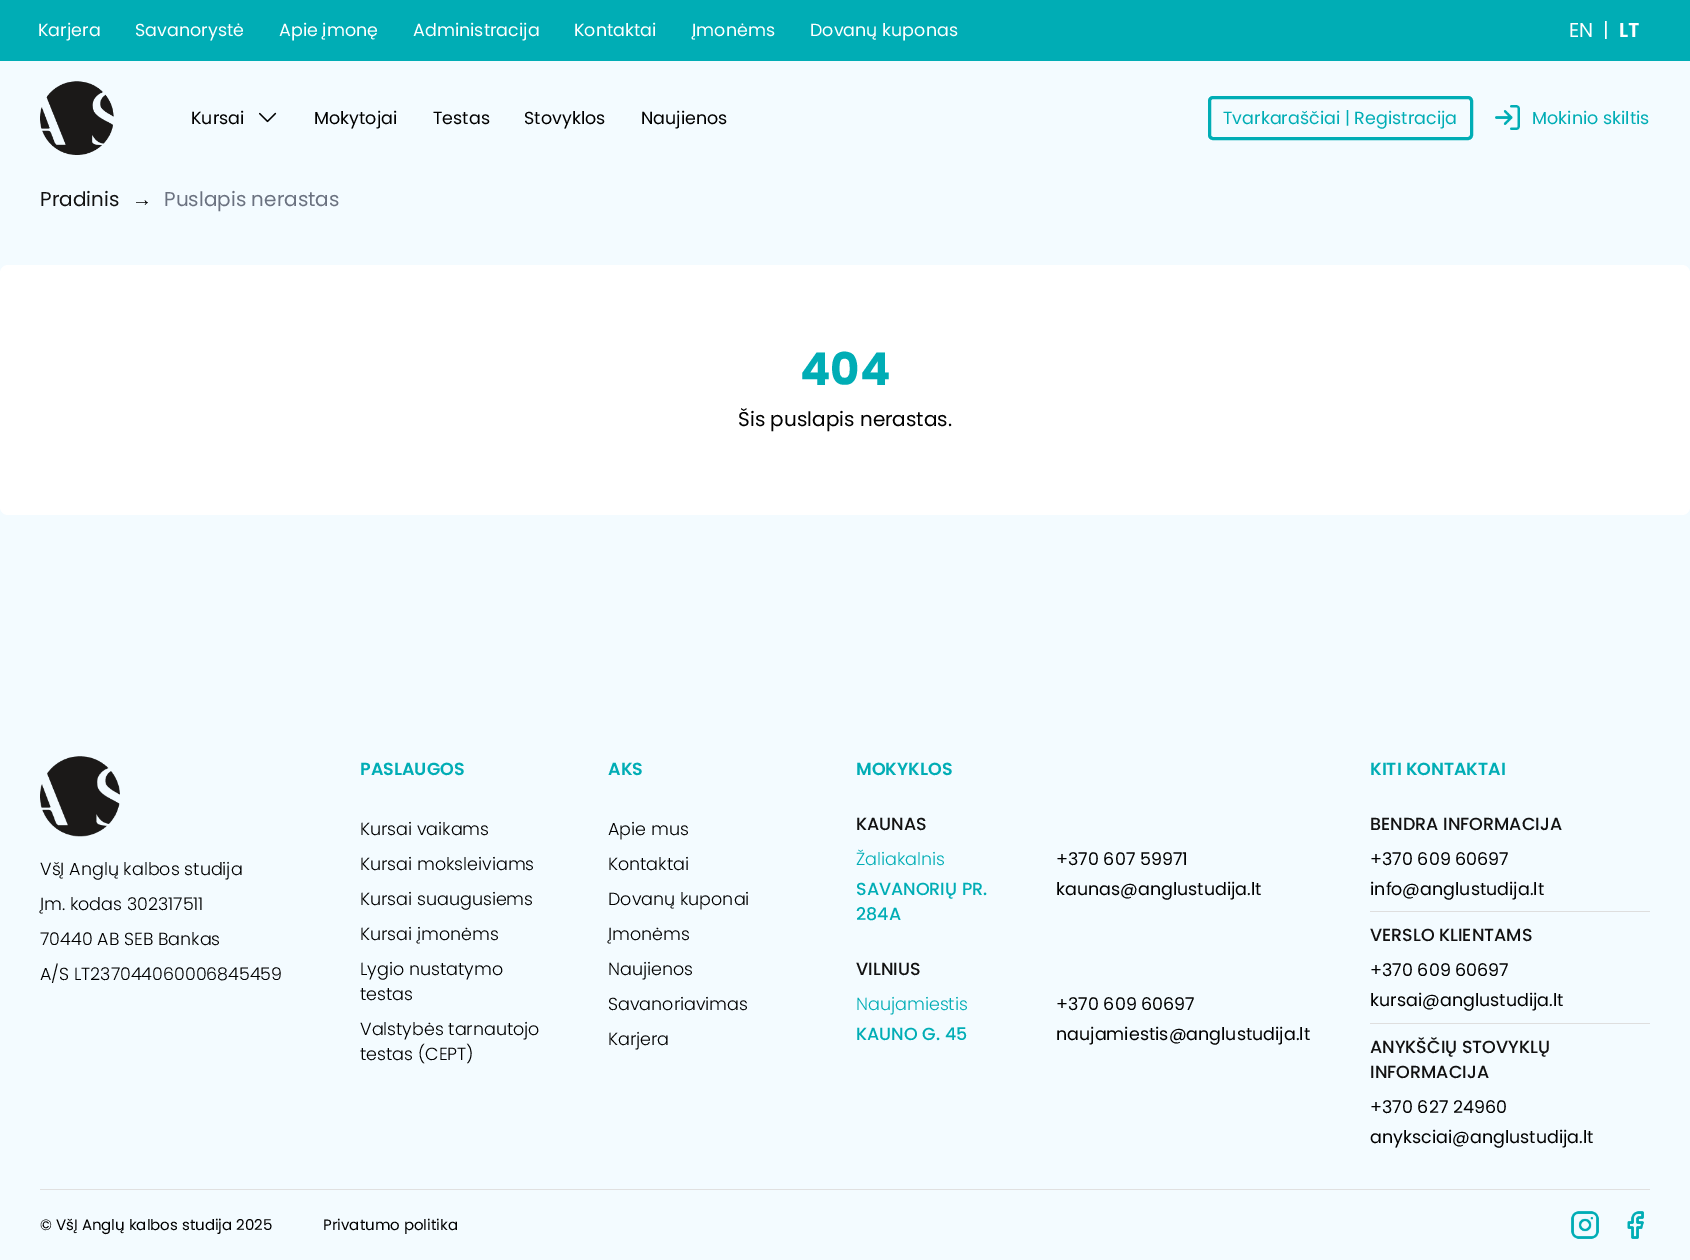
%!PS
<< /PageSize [1690 1260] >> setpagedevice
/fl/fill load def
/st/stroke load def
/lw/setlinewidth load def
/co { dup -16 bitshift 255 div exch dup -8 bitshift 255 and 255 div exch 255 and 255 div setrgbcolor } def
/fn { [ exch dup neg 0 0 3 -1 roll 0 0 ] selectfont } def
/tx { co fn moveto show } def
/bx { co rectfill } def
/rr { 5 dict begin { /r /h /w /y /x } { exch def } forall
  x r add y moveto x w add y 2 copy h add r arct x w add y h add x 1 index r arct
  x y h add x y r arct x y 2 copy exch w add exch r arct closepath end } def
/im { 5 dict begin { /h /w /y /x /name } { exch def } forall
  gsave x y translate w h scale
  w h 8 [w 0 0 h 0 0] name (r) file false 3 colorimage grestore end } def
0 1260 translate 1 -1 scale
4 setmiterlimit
0 0 1690 1260 16#F3FBFF bx
0 0 1690 61 16#00ADB5 bx
(media/1.raw) 40 81 74 74 im
(media/2.raw) 259 112 18 11 im
3 lw
1209.5 97.5 262 41 3.5 rr st
(media/3.raw) 1495 105 25 25 im
16#FFFFFF co
0 265 1690 250 8 rr fl
(media/4.raw) 40 756 80 81 im
1370 911 280 1 16#DEDEDE bx
1370 1023 280 1 16#DEDEDE bx
40 1189 1610 1 16#E0E0E0 bx
(media/5.raw) 1571 1211 28 28 im
(media/6.raw) 1627 1211 17 28 im
(Karjera) 38 36 /Poppins-Regular 17.5 16#FFFFFF tx
(Savanorystė) 135 36 /Poppins-Regular 17.5 16#FFFFFF tx
(Apie įmonę) 279 36 /Poppins-Regular 17.5 16#FFFFFF tx
(Administracija) 413 36 /Poppins-Regular 17.5 16#FFFFFF tx
(Kontaktai) 574 36 /Poppins-Regular 17.5 16#FFFFFF tx
(Įmonėms) 692 36 /Poppins-Regular 17.5 16#FFFFFF tx
(Dovanų kuponas) 810 36 /Poppins-Regular 17.5 16#FFFFFF tx
(EN) 1569 37 /Poppins-Regular 20 16#FFFFFF tx
(|) 1603 37 /Poppins-Regular 20 16#FFFFFF tx
(LT) 1619 37 /Poppins-SemiBold 20 16#FFFFFF tx
(Kursai) 191 124 /Poppins-Regular 17.5 16#000000 tx
(Mokytojai) 314 124 /Poppins-Regular 17.5 16#000000 tx
(Testas) 433 124 /Poppins-Regular 17.5 16#000000 tx
(Stovyklos) 524 124 /Poppins-Regular 17.5 16#000000 tx
(Naujienos) 641 124 /Poppins-Regular 17.5 16#000000 tx
(Tvarkaraščiai | Registracija) 1223 124 /Poppins-Regular 17.5 16#00ADB5 tx
(Mokinio skiltis) 1532 124 /Poppins-Regular 17.5 16#00ADB5 tx
(Pradinis) 40 206 /Poppins-Regular 20 16#121212 tx
(→) 132 206 /LiberationSans-Regular 20 16#000000 tx
(Puslapis nerastas) 164 206 /Poppins-Regular 20 16#6B7280 tx
(404) 800 385 /Poppins-Bold 45 16#00ADB5 tx
(Šis puslapis nerastas.) 738 426 /Poppins-Regular 20 16#000000 tx
(VšĮ Anglų kalbos studija) 40 875 /Poppins-Light 17.5 16#000000 tx
(Įm. kodas 302317511) 40 910 /Poppins-Light 17.5 16#000000 tx
(70440 AB SEB Bankas) 40 945 /Poppins-Light 17.5 16#000000 tx
(A/S LT237044060006845459) 40 980 /Poppins-Light 17.5 16#000000 tx
(PASLAUGOS) 360 775 /Poppins-SemiBold 17.5 16#00ADB5 tx
(Kursai vaikams) 360 835 /Poppins-Light 17.5 16#000000 tx
(Kursai moksleiviams) 360 870 /Poppins-Light 17.5 16#000000 tx
(Kursai suaugusiems) 360 905 /Poppins-Light 17.5 16#000000 tx
(Kursai įmonėms) 360 940 /Poppins-Light 17.5 16#000000 tx
(Lygio nustatymo) 360 975 /Poppins-Light 17.5 16#000000 tx
(testas) 360 1000 /Poppins-Light 17.5 16#000000 tx
(Valstybės tarnautojo) 360 1035 /Poppins-Light 17.5 16#000000 tx
(testas \(CEPT\)) 360 1060 /Poppins-Light 17.5 16#000000 tx
(AKS) 608 775 /Poppins-SemiBold 17.5 16#00ADB5 tx
(Apie mus) 608 835 /Poppins-Light 17.5 16#000000 tx
(Kontaktai) 608 870 /Poppins-Light 17.5 16#000000 tx
(Dovanų kuponai) 608 905 /Poppins-Light 17.5 16#000000 tx
(Įmonėms) 608 940 /Poppins-Light 17.5 16#000000 tx
(Naujienos) 608 975 /Poppins-Light 17.5 16#000000 tx
(Savanoriavimas) 608 1010 /Poppins-Light 17.5 16#000000 tx
(Karjera) 608 1045 /Poppins-Light 17.5 16#000000 tx
(MOKYKLOS) 856 775 /Poppins-SemiBold 17.5 16#00ADB5 tx
(KAUNAS) 856 830 /Poppins-Medium 17.5 16#121212 tx
(Žaliakalnis) 856 865 /Poppins-Light 17.5 16#00ADB5 tx
(SAVANORIŲ PR.) 856 895 /Poppins-Medium 17.5 16#00ADB5 tx
(284A) 856 920 /Poppins-Medium 17.5 16#00ADB5 tx
(+370 607 59971) 1056 865 /Poppins-Regular 17.5 16#000000 tx
(kaunas@anglustudija.lt) 1056 895 /Poppins-Regular 17.5 16#000000 tx
(VILNIUS) 856 975 /Poppins-Medium 17.5 16#121212 tx
(Naujamiestis) 856 1010 /Poppins-Light 17.5 16#00ADB5 tx
(KAUNO G. 45) 856 1040 /Poppins-Medium 17.5 16#00ADB5 tx
(+370 609 60697) 1056 1010 /Poppins-Regular 17.5 16#000000 tx
(naujamiestis@anglustudija.lt) 1056 1040 /Poppins-Regular 17.5 16#000000 tx
(KITI KONTAKTAI) 1370 775 /Poppins-SemiBold 17.5 16#00ADB5 tx
(BENDRA INFORMACIJA) 1370 830 /Poppins-Medium 17.5 16#121212 tx
(+370 609 60697) 1370 865 /Poppins-Regular 17.5 16#000000 tx
(info@anglustudija.lt) 1370 895 /Poppins-Regular 17.5 16#000000 tx
(VERSLO KLIENTAMS) 1370 941 /Poppins-Medium 17.5 16#121212 tx
(+370 609 60697) 1370 976 /Poppins-Regular 17.5 16#000000 tx
(kursai@anglustudija.lt) 1370 1006 /Poppins-Regular 17.5 16#000000 tx
(ANYKŠČIŲ STOVYKLŲ) 1370 1053 /Poppins-Medium 17.5 16#121212 tx
(INFORMACIJA) 1370 1078 /Poppins-Medium 17.5 16#121212 tx
(+370 627 24960) 1370 1113 /Poppins-Regular 17.5 16#000000 tx
(anyksciai@anglustudija.lt) 1370 1143 /Poppins-Regular 17.5 16#000000 tx
(© VšĮ Anglų kalbos studija 2025) 40 1230 /Poppins-Regular 15 16#000000 tx
(Privatumo politika) 323 1230 /Poppins-Regular 15 16#000000 tx
showpage
